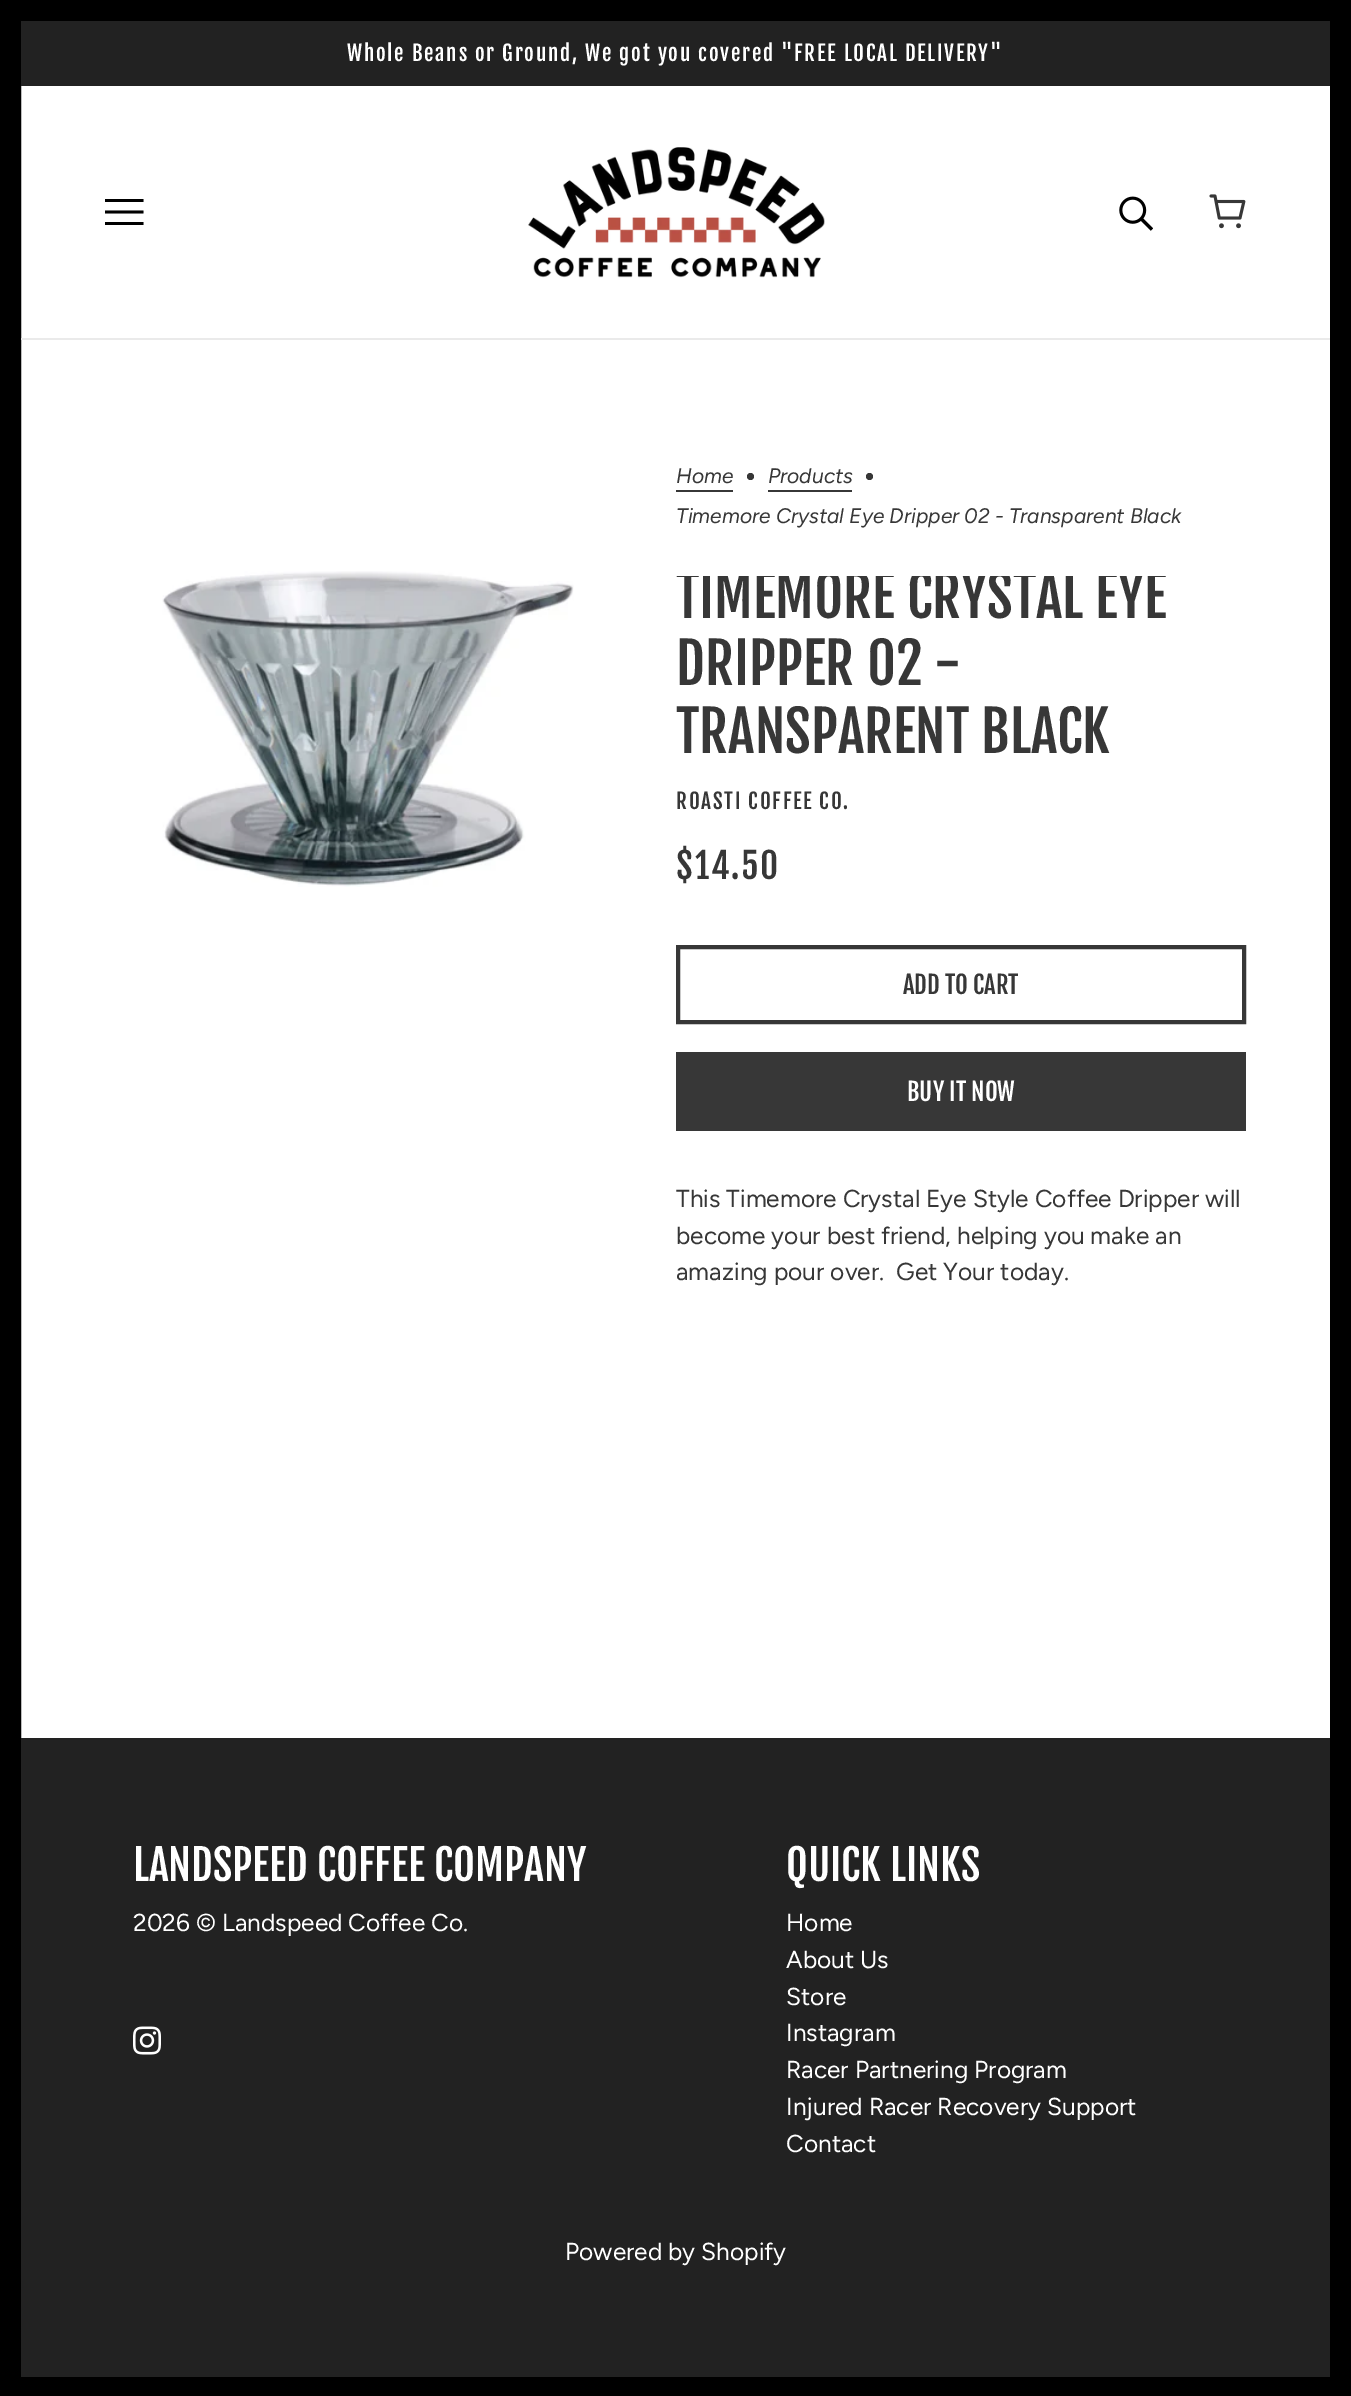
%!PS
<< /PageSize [1351 2396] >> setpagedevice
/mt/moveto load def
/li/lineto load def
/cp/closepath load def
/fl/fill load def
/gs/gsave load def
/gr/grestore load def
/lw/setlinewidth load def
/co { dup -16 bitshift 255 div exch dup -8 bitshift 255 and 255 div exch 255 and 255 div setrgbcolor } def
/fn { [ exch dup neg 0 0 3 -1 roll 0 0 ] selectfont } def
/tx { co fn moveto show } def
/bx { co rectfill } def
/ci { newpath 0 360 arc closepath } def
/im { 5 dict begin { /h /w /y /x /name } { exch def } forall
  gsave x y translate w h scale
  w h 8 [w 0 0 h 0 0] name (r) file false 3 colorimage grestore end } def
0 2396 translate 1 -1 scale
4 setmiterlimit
0 0 1351 2396 16#FFFFFF bx
16#000000 co
21 lw
10.5 10.5 1330 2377 rectstroke
21 21 1309 65 16#222222 bx
21 338 1309 2 16#EAEAEA bx
16#000000 co
105 202 mt 105 199 li 143.5 199 li 143.5 202 li cp 105 213.5 mt 105 210.5 li 143.5 210.5 li 143.5 213.5 li cp 105 225 mt 105 222 li 143.5 222 li 143.5 225 li cp fl
(media/1.raw) 528 147 297 131 im
(media/2.raw) 1119 196 34 35 im
(media/3.raw) 1209 194 37 35 im
(media/4.raw) 162 571 412 316 im
676 490 57 2 16#373737 bx
750.5 476.5 3.5 ci fl
768 490 84 2 16#373737 bx
869.5 476.5 3.5 ci fl
4 lw
678 947 566 75 rectstroke
676 1052 570 79 16#373737 bx
21 1738 1309 639 16#222222 bx
(media/5.raw) 133 2026 28 29 im
/FjallaOne-Regular 21 fn
16#FFFFFF co
347 61 mt 1.75 0 (Whole Beans or Ground, We got you covered "FREE LOCAL DELIVERY") ashow
(Home) 676 483 /Figtree-Italic 21 16#373737 tx
(Products) 768 483 /Figtree-Italic 21 16#373737 tx
(Timemore Crystal Eye Dripper 02 - Transparent Black) 676 523 /Figtree-Italic 21 16#373737 tx
gs
676 576 570 178 rectclip
(TIMEMORE CRYSTAL EYE) 676 618 /FjallaOne-Regular 56 16#373737 tx
gr
(DRIPPER 02 -) 676 685 /FjallaOne-Regular 56 16#373737 tx
(TRANSPARENT BLACK) 676 753 /FjallaOne-Regular 56 16#373737 tx
/FjallaOne-Regular 21 fn
676 809 mt 1.75 0 (ROASTI COFFEE CO.) ashow
/FjallaOne-Regular 35 fn
676 879 mt 1.75 0 ($14.50) ashow
(ADD TO CART) 903 994 /FjallaOne-Regular 24.5 16#373737 tx
(BUY IT NOW) 907 1101 /FjallaOne-Regular 24.5 16#FFFFFF tx
(This Timemore Crystal Eye Style Coffee Dripper will) 676 1207 /Figtree-Regular 24.5 16#373737 tx
(become your best friend, helping you make an) 676 1244 /Figtree-Regular 24.5 16#373737 tx
(amazing pour over.  Get Your today.) 676 1280 /Figtree-Regular 24.5 16#373737 tx
(LANDSPEED COFFEE COMPANY) 133 1881 /FjallaOne-Regular 42 16#FFFFFF tx
(2026 © Landspeed Coffee Co.) 133 1931 /Figtree-Regular 24.5 16#FFFFFF tx
(QUICK LINKS) 786 1881 /FjallaOne-Regular 42 16#FFFFFF tx
(Home) 786 1931 /Figtree-Regular 24.5 16#FFFFFF tx
(About Us) 786 1968 /Figtree-Regular 24.5 16#FFFFFF tx
(Store) 786 2005 /Figtree-Regular 24.5 16#FFFFFF tx
(Instagram) 786 2041 /Figtree-Regular 24.5 16#FFFFFF tx
(Racer Partnering Program) 786 2078 /Figtree-Regular 24.5 16#FFFFFF tx
(Injured Racer Recovery Support) 786 2115 /Figtree-Regular 24.5 16#FFFFFF tx
(Contact) 786 2152 /Figtree-Regular 24.5 16#FFFFFF tx
(Powered by Shopify) 565 2260 /Figtree-Regular 24.5 16#FFFFFF tx
showpage
